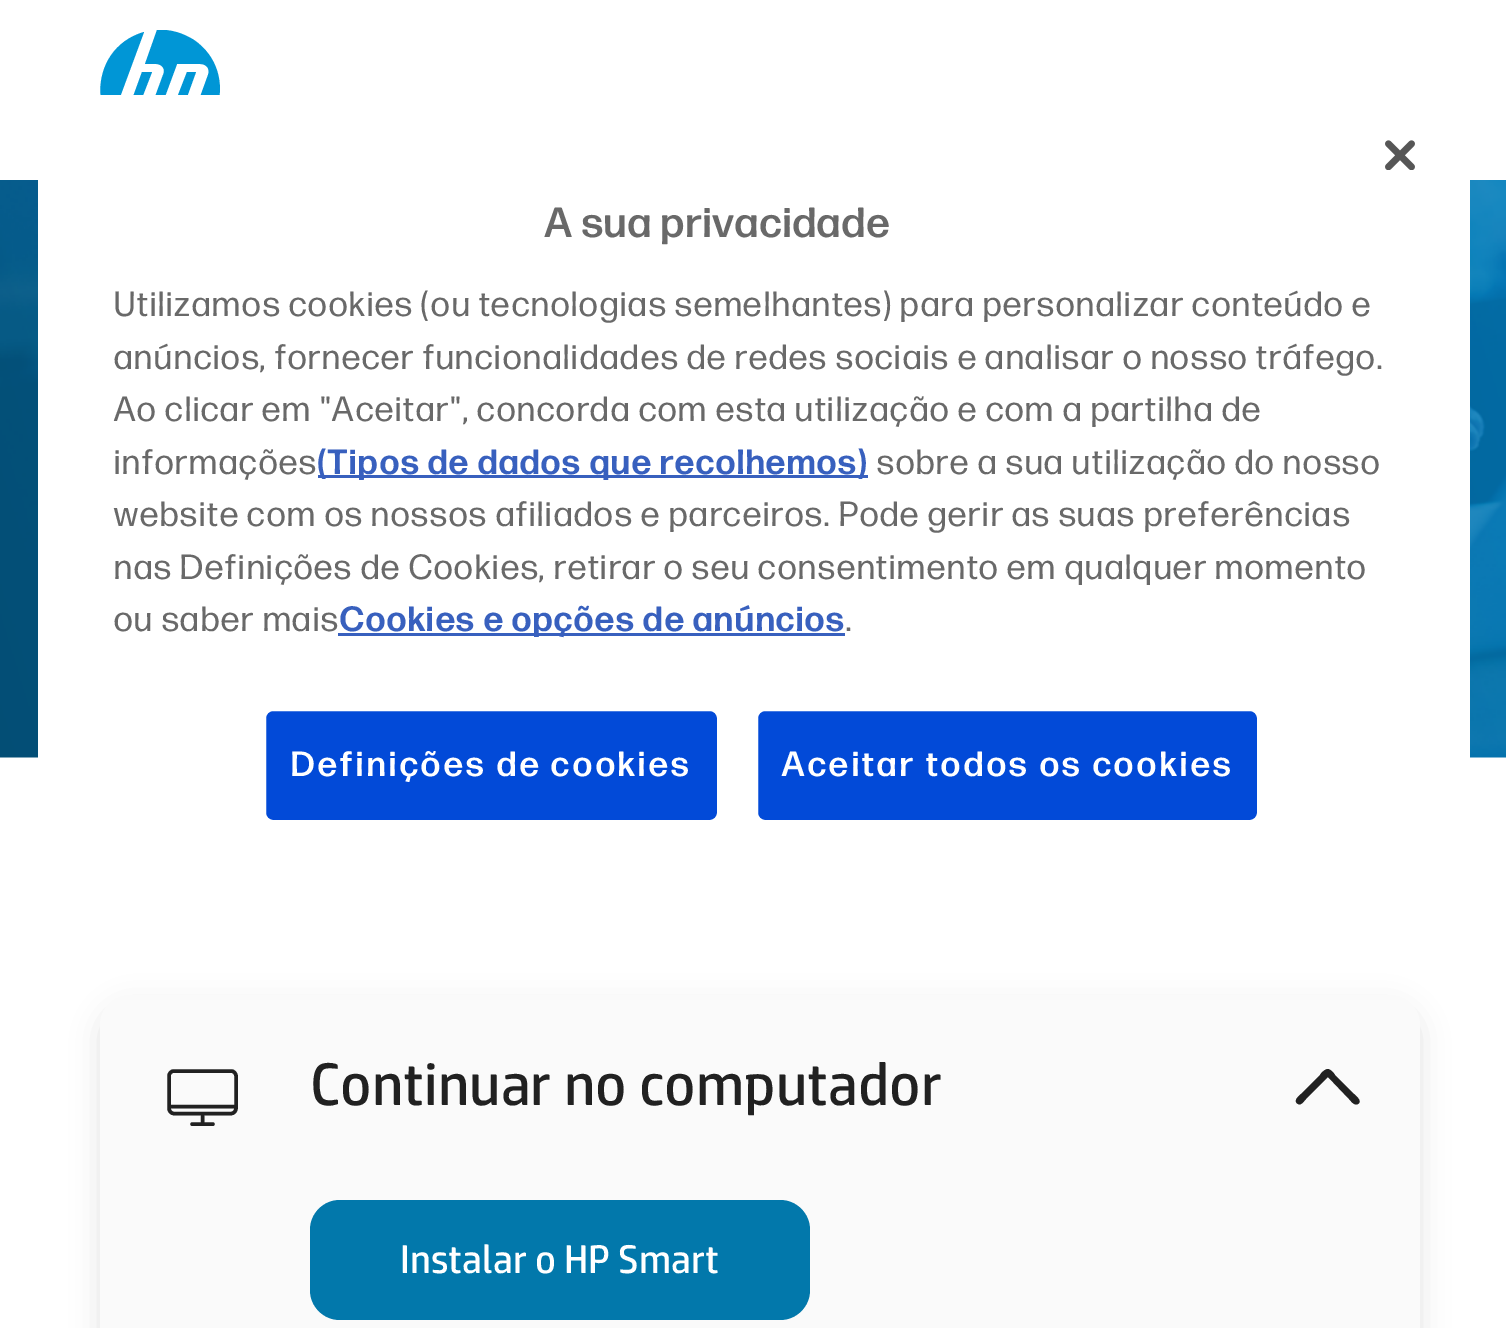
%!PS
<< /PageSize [1506 1328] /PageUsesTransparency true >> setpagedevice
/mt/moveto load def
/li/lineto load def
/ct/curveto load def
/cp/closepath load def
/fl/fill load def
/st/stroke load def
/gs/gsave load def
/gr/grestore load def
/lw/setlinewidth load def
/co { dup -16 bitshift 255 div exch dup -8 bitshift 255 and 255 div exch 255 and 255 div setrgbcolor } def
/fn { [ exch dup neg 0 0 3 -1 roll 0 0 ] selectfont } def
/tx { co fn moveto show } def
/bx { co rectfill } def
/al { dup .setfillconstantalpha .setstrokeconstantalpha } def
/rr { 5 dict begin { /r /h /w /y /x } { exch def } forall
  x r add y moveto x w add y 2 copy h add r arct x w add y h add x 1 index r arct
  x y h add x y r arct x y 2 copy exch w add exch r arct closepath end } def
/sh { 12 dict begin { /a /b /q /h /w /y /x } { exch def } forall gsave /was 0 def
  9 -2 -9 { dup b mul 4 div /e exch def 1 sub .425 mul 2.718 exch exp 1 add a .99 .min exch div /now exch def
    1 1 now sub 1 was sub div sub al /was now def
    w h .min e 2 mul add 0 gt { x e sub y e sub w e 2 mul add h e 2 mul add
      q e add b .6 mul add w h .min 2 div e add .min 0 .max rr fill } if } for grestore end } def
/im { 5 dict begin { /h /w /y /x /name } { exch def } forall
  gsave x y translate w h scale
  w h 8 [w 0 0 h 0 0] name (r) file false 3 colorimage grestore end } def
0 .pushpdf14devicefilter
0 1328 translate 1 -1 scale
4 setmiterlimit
0 0 1506 1328 16#FFFFFF bx
gs
100 30 120 120 rectclip
16#0096D6 co
160 150 mt 158 150 li 170 116 li 187 116 li 190 116 194 114 195 111 ct 208 75 li 210 69 207 64 200 64 ct 177 64 li 146 148 li 86 134 85 49 144 32 ct 113 116 li 126 116 li 142 72 li 152 72 li 135 116 li 148 116 li 163 75 li 166 69 162 64 156 64 ct 145 64 li 157 30 li 170 29 183 33 194 40 ct 242 73 219 150 160 150 ct cp 196 72 mt 187 72 li 173 108 li 183 108 li cp fl
gr
(media/2.raw) 0 180 1506 578 im
38 95 1432 805 6 rr fl
(media/1.raw) 1385 140 30 30 im
318 475 550 3 16#3860BE bx
338 633 507 3 16#3860BE bx
16#024AD8 co
264.5 709.5 454 112 8.5 rr gs fl gr
16#FFFFFF co
3 lw
st
16#024AD8 co
756.5 709.5 502 112 8.5 rr gs fl gr
16#FFFFFF co
st
16#000000 co
100 1005 1320 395 30 14 .11 sh
16#FAFAFA co
100 995 1320 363 30 rr fl
16#212121 co
3.5 lw
1 setlinecap
1 setlinejoin
169 1106.5 mt 236 1106.5 li 202.5 1113.5 mt 202.5 1124 li 192 1124 mt 213 1124 li 169 1108 mt 169 1076 li 169 1073.5 171 1071 174 1071 ct 231 1071 li 234 1071 236 1073.5 236 1076 ct 236 1108 li 236 1111 234 1113.5 231 1113.5 ct 174 1113.5 li 171 1113.5 169 1111 169 1108 ct cp st
1328 1069 mt 1330 1069 1334 1073 1335 1075 ct 1354 1094 li 1355 1095 1363 1101 1358 1104 ct 1354 1106 1351 1101 1349 1099 ct 1328 1077 li 1306 1099 li 1304 1101 1301 1106 1298 1104 ct 1292 1101 1300 1095 1301 1094 ct 1320 1075 li 1321 1073 1325 1069 1328 1069 ct cp fl
16#0278AB co
310 1200 500 120 30 rr fl
(A sua privacidade) 544 237 /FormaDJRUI-SemiBold 42 16#696969 tx
(Utilizamos cookies \(ou tecnologias semelhantes\) para personalizar conteúdo e) 113 316 /FormaDJRUI-Regular 35 16#696969 tx
(anúncios, fornecer funcionalidades de redes sociais e analisar o nosso tráfego.) 113 369 /FormaDJRUI-Regular 35 16#696969 tx
(Ao clicar em "Aceitar", concorda com esta utilização e com a partilha de) 113 421 /FormaDJRUI-Regular 35 16#696969 tx
(informações) 113 474 /FormaDJRUI-Regular 35 16#696969 tx
(\(Tipos de dados que recolhemos\)) 317 474 /FormaDJRUI-Bold 35 16#3860BE tx
(sobre a sua utilização do nosso) 876 474 /FormaDJRUI-Regular 35 16#696969 tx
(website com os nossos afiliados e parceiros. Pode gerir as suas preferências) 113 526 /FormaDJRUI-Regular 35 16#696969 tx
(nas Definições de Cookies, retirar o seu consentimento em qualquer momento) 113 579 /FormaDJRUI-Regular 35 16#696969 tx
(ou saber mais) 113 631 /FormaDJRUI-Regular 35 16#696969 tx
(Cookies e opções de anúncios) 339 631 /FormaDJRUI-Bold 35 16#3860BE tx
(.) 845 631 /FormaDJRUI-Regular 35 16#696969 tx
/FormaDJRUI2-SemiBold 35 fn
16#FFFFFF co
290 776 mt 1.75 0 (Definições de cookies) ashow
781 776 mt 1.75 0 (Aceitar todos os cookies) ashow
(Continuar no computador) 310 1105 /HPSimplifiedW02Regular-Regular 60 16#212121 tx
(Instalar o HP Smart) 400 1273 /HPSimplifiedW02Regular-Regular 40 16#FFFFFF tx
.poppdf14devicefilter showpage
